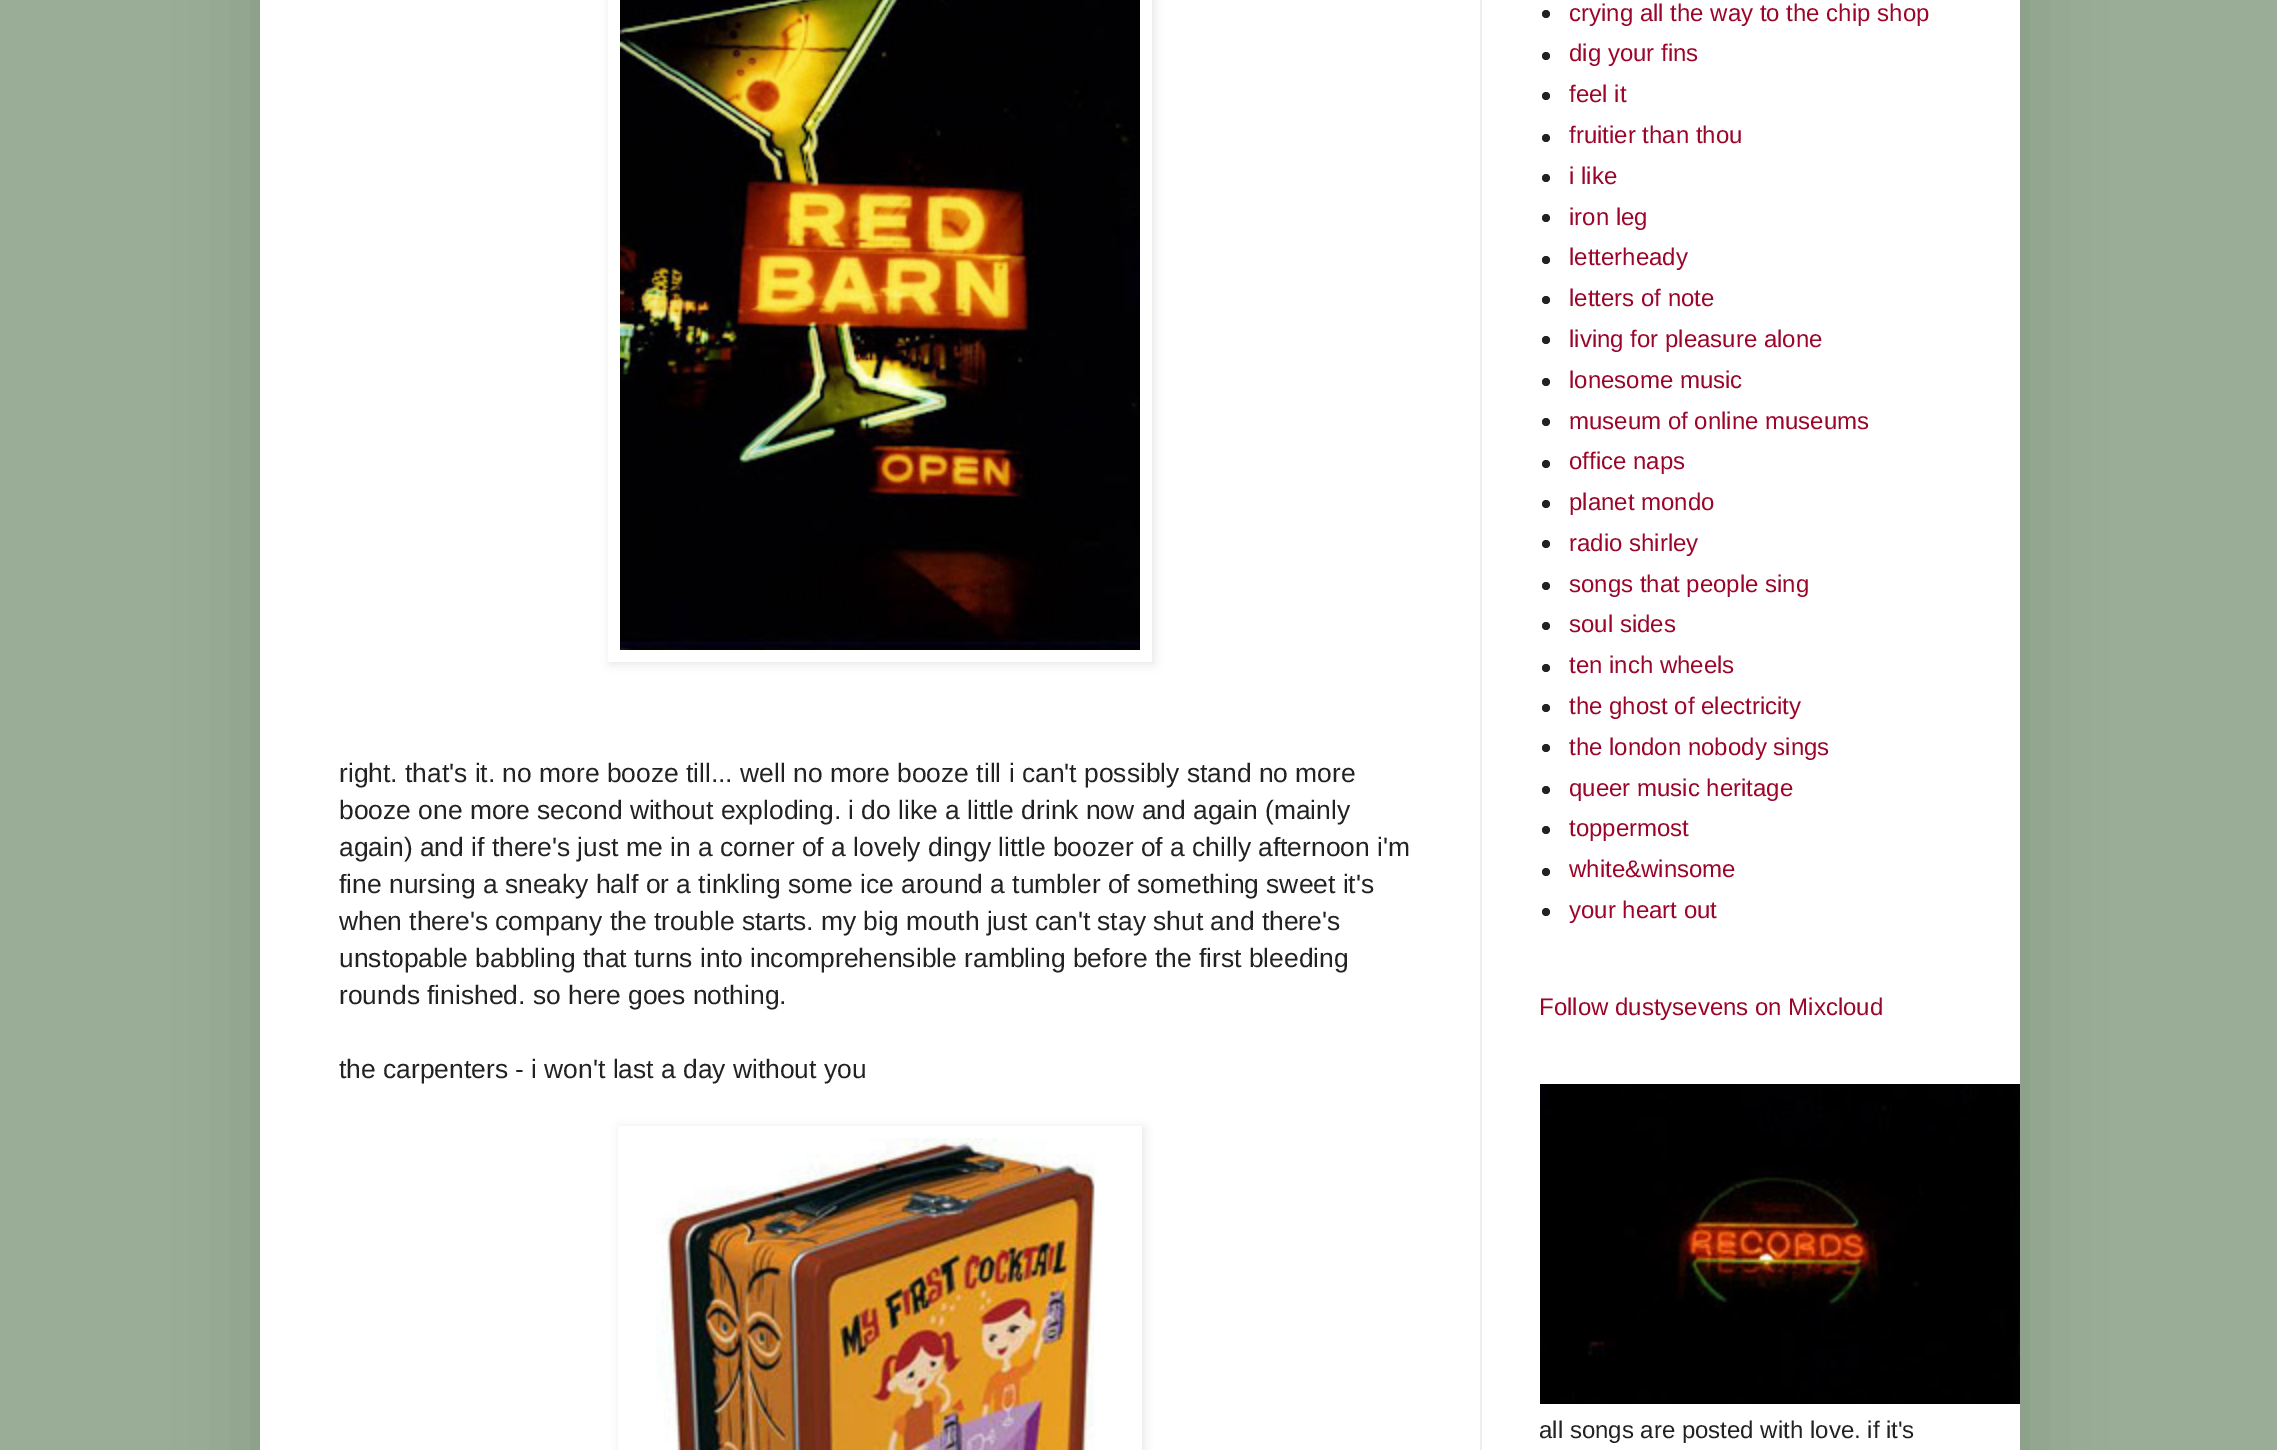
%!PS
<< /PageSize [2277 1450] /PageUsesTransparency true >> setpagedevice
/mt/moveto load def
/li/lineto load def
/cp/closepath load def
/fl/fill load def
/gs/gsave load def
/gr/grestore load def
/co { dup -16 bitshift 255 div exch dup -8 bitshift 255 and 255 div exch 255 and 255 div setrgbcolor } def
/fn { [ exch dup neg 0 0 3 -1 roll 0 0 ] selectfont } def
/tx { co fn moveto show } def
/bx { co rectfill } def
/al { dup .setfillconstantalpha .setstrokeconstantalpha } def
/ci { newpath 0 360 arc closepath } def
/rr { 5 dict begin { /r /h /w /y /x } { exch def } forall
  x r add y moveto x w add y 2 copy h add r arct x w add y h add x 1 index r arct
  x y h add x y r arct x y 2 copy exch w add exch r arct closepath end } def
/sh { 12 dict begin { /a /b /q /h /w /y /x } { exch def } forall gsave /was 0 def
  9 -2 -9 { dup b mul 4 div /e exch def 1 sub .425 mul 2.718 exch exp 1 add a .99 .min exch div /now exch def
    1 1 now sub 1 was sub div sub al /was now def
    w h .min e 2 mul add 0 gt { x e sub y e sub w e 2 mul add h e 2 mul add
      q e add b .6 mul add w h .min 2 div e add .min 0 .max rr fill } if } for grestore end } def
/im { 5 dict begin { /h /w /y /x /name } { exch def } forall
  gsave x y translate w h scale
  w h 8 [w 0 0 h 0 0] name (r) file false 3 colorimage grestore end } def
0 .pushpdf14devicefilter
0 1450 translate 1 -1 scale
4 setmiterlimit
0 0 2277 1450 16#9AAE97 bx
16#000000 co
260 -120 1760 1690 0 40 .15 sh
260 0 1760 1450 16#FFFFFF bx
1480 0 2 1450 16#EEEEEE bx
gs
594 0 mt 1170 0 li 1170 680 li 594 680 li cp 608 -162 mt 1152 -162 li 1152 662 li 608 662 li cp eoclip newpath
16#000000 co
610 -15 544 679 0 5 .1 sh
gr
(media/1.raw) 620 0 520 650 im
gs
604 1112 mt 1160 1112 li 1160 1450 li 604 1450 li cp 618 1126 mt 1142 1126 li 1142 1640 li 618 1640 li cp eoclip newpath
16#000000 co
620 1128 524 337 0 5 .1 sh
gr
(media/2.raw) 656 1138 439 312 im
16#222222 co
1546 14 4 ci fl
1546 56 4 ci fl
1546 96 4 ci fl
1546 138 4 ci fl
1546 178 4 ci fl
1546 218 4 ci fl
1546 260 4 ci fl
1546 300 4 ci fl
1546 340 4 ci fl
1546 382 4 ci fl
1546 422 4 ci fl
1546 464 4 ci fl
1546 504 4 ci fl
1546 544 4 ci fl
1546 586 4 ci fl
1546 626 4 ci fl
1546 668 4 ci fl
1546 708 4 ci fl
1546 748 4 ci fl
1546 790 4 ci fl
1546 830 4 ci fl
1546 872 4 ci fl
1546 912 4 ci fl
(media/3.raw) 1540 1084 480 320 im
(right. that's it. no more booze till... well no more booze till i can't possibly stand no more) 339 782 /LiberationSans-Regular 26.4 16#222222 tx
(booze one more second without exploding. i do like a little drink now and again \(mainly) 339 819 /LiberationSans-Regular 26.4 16#222222 tx
(again\) and if there's just me in a corner of a lovely dingy little boozer of a chilly afternoon i'm) 339 856 /LiberationSans-Regular 26.4 16#222222 tx
(fine nursing a sneaky half or a tinkling some ice around a tumbler of something sweet it's) 339 893 /LiberationSans-Regular 26.4 16#222222 tx
(when there's company the trouble starts. my big mouth just can't stay shut and there's) 339 930 /LiberationSans-Regular 26.4 16#222222 tx
(unstopable babbling that turns into incomprehensible rambling before the first bleeding) 339 967 /LiberationSans-Regular 26.4 16#222222 tx
(rounds finished. so here goes nothing.) 339 1004 /LiberationSans-Regular 26.4 16#222222 tx
(the carpenters - i won't last a day without you) 339 1078 /LiberationSans-Regular 26.4 16#222222 tx
(crying all the way to the chip shop) 1569 21 /LiberationSans-Regular 24 16#9B052A tx
(dig your fins) 1569 61 /LiberationSans-Regular 24 16#9B052A tx
(feel it) 1569 102 /LiberationSans-Regular 24 16#9B052A tx
(fruitier than thou) 1569 143 /LiberationSans-Regular 24 16#9B052A tx
(i like) 1569 184 /LiberationSans-Regular 24 16#9B052A tx
(iron leg) 1569 225 /LiberationSans-Regular 24 16#9B052A tx
(letterheady) 1569 265 /LiberationSans-Regular 24 16#9B052A tx
(letters of note) 1569 306 /LiberationSans-Regular 24 16#9B052A tx
(living for pleasure alone) 1569 347 /LiberationSans-Regular 24 16#9B052A tx
(lonesome music) 1569 388 /LiberationSans-Regular 24 16#9B052A tx
(museum of online museums) 1569 429 /LiberationSans-Regular 24 16#9B052A tx
(office naps) 1569 469 /LiberationSans-Regular 24 16#9B052A tx
(planet mondo) 1569 510 /LiberationSans-Regular 24 16#9B052A tx
(radio shirley) 1569 551 /LiberationSans-Regular 24 16#9B052A tx
(songs that people sing) 1569 592 /LiberationSans-Regular 24 16#9B052A tx
(soul sides) 1569 632 /LiberationSans-Regular 24 16#9B052A tx
(ten inch wheels) 1569 673 /LiberationSans-Regular 24 16#9B052A tx
(the ghost of electricity) 1569 714 /LiberationSans-Regular 24 16#9B052A tx
(the london nobody sings) 1569 755 /LiberationSans-Regular 24 16#9B052A tx
(queer music heritage) 1569 796 /LiberationSans-Regular 24 16#9B052A tx
(toppermost) 1569 836 /LiberationSans-Regular 24 16#9B052A tx
(white&winsome) 1569 877 /LiberationSans-Regular 24 16#9B052A tx
(your heart out) 1569 918 /LiberationSans-Regular 24 16#9B052A tx
(Follow dustysevens on Mixcloud) 1539 1015 /LiberationSans-Regular 24 16#9B052A tx
(all songs are posted with love. if it's) 1539 1438 /LiberationSans-Regular 24 16#222222 tx
.poppdf14devicefilter showpage
